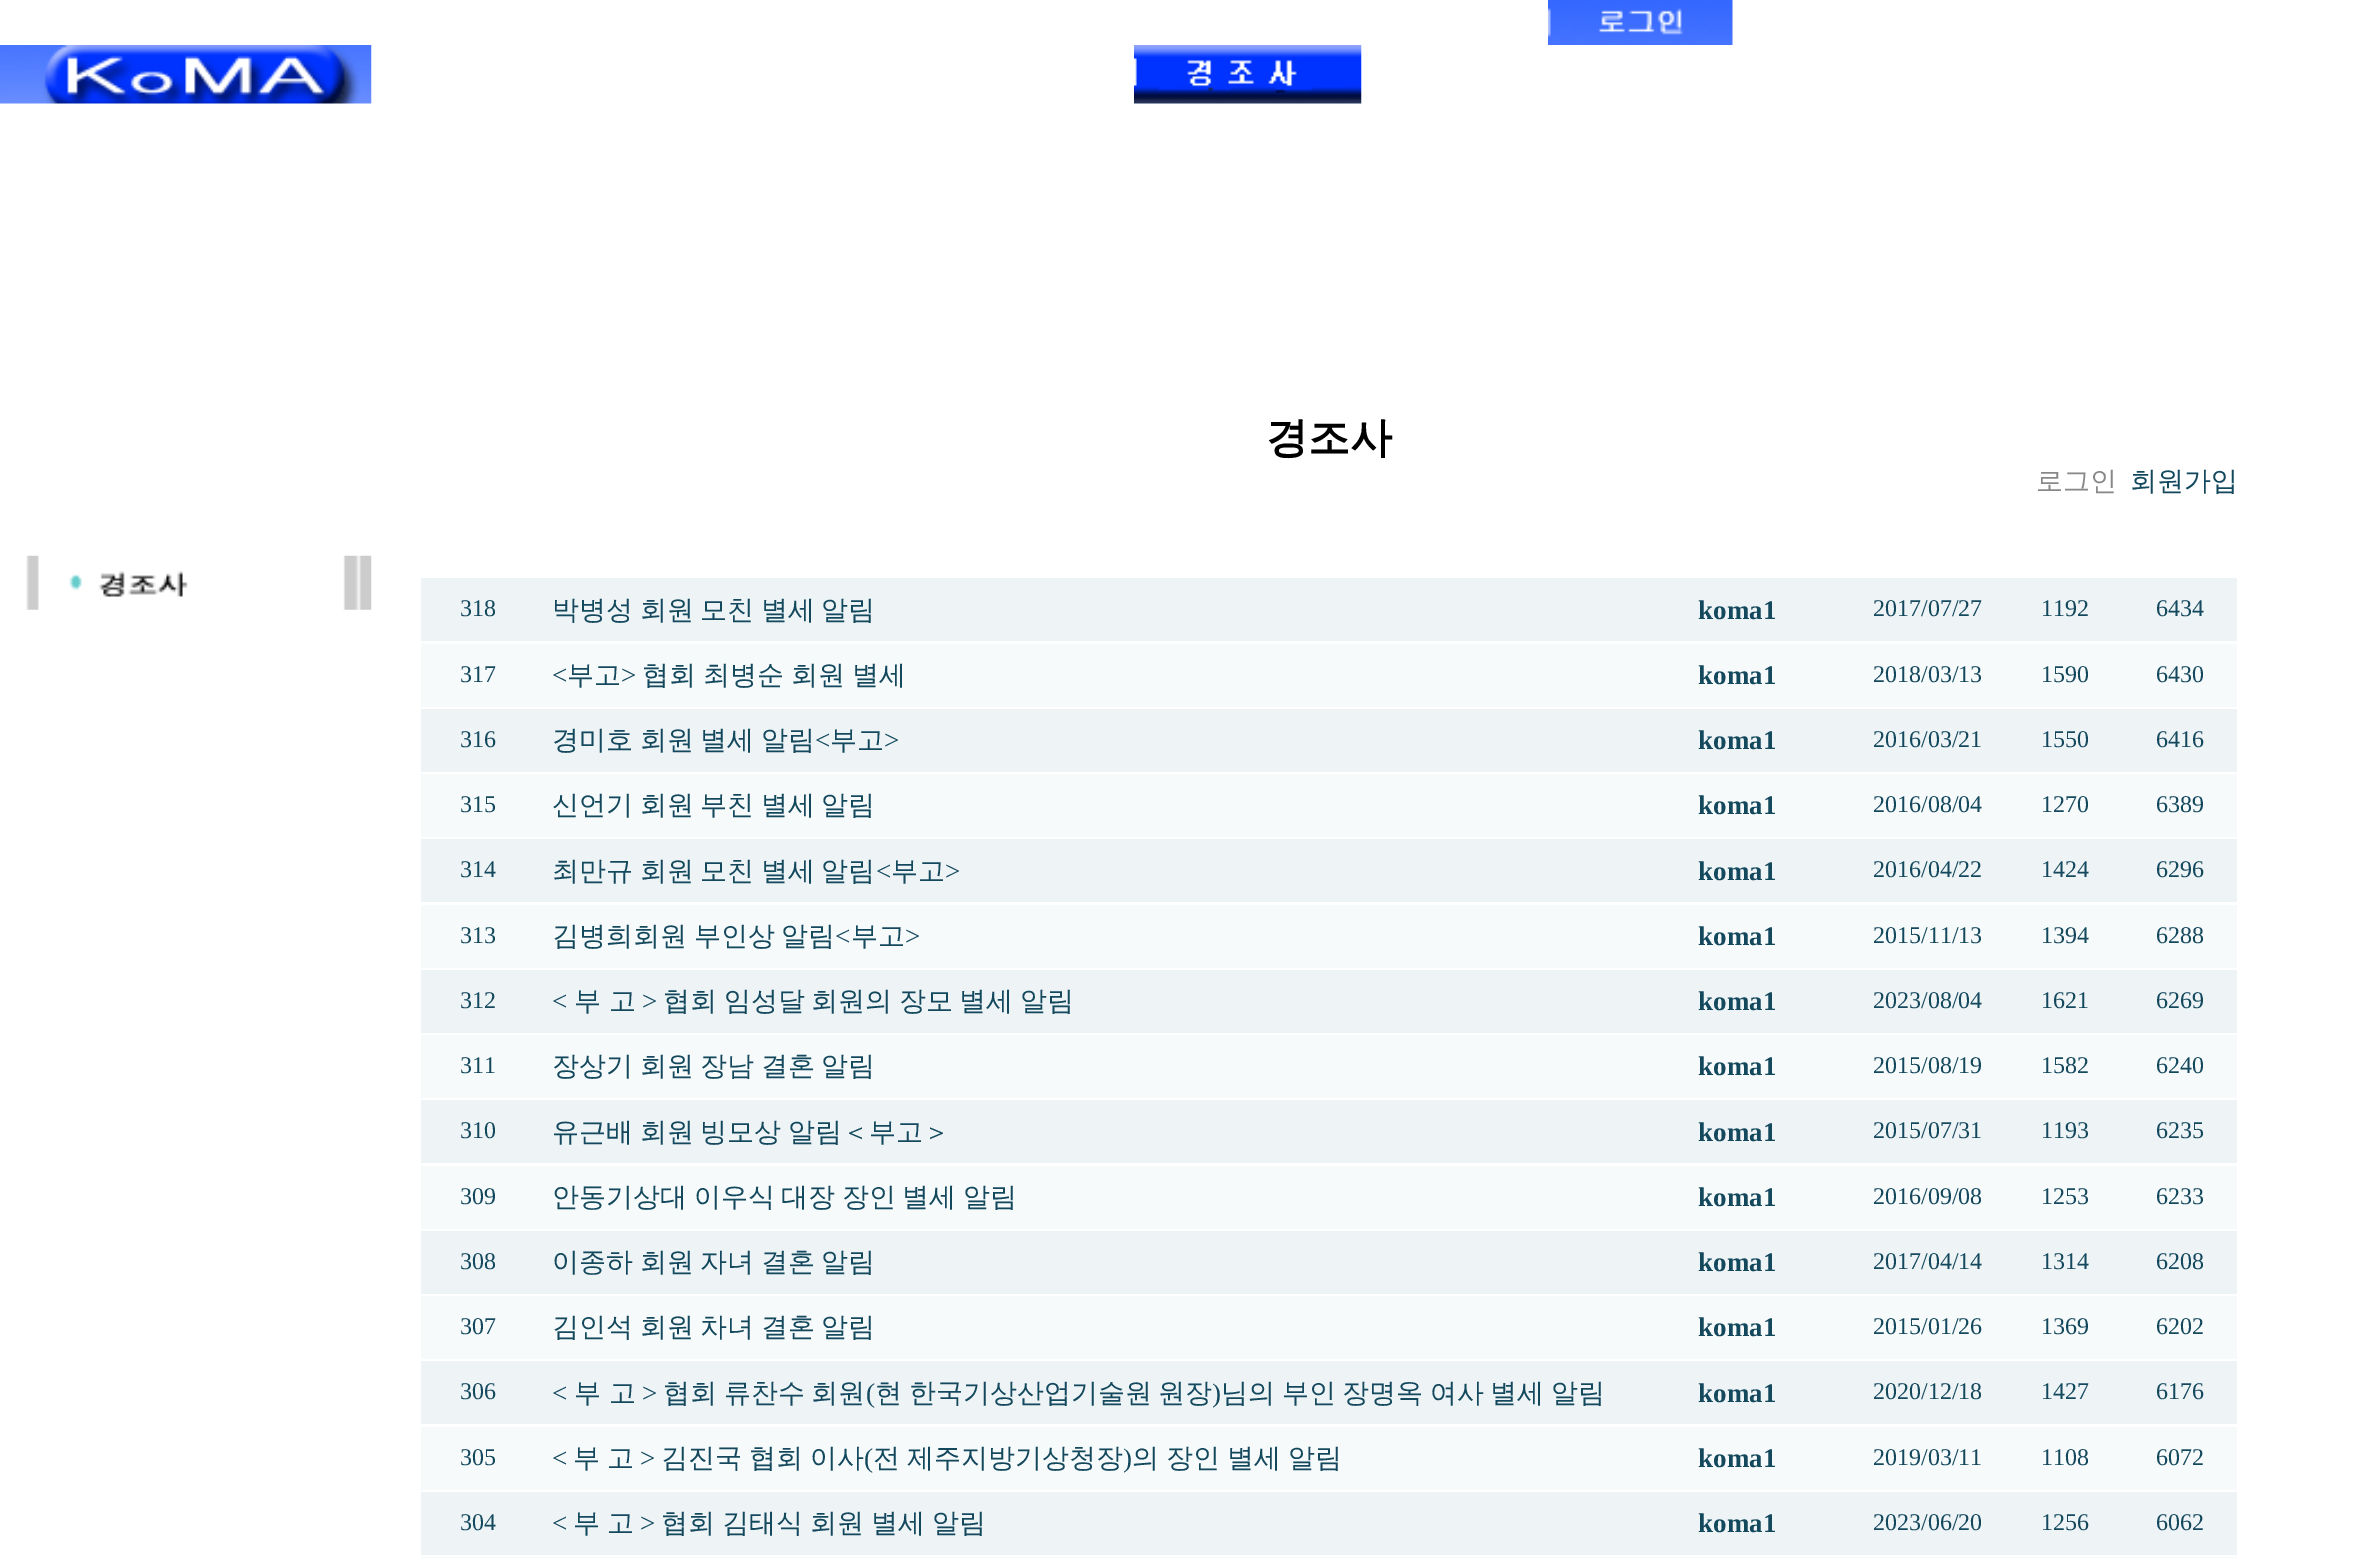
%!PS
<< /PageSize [2358 1558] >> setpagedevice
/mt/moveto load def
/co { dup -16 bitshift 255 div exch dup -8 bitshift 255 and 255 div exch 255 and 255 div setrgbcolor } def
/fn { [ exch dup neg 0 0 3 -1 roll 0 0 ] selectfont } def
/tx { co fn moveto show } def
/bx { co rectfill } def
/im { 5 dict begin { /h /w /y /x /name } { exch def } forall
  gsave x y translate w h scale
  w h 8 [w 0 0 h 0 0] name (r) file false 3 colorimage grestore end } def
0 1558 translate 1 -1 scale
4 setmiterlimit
0 0 2358 1558 16#FFFFFF bx
(media/1.raw) 1548 0 185 45 im
(media/2.raw) 0 45 372 59 im
(media/3.raw) 1134 45 228 59 im
(media/4.raw) 26 555 346 55 im
421 578 1816 63 16#EEF3F6 bx
421 644 1816 63 16#F7FAFB bx
421 709 1816 63 16#EEF3F6 bx
421 774 1816 63 16#F7FAFB bx
421 839 1816 63 16#EEF3F6 bx
421 905 1816 63 16#F7FAFB bx
421 970 1816 63 16#EEF3F6 bx
421 1035 1816 63 16#F7FAFB bx
421 1100 1816 63 16#EEF3F6 bx
421 1166 1816 63 16#F7FAFB bx
421 1231 1816 63 16#EEF3F6 bx
421 1296 1816 63 16#F7FAFB bx
421 1361 1816 63 16#EEF3F6 bx
421 1427 1816 63 16#F7FAFB bx
421 1492 1816 63 16#EEF3F6 bx
421 1557 1816 1 16#F7FAFB bx
(경조사) 1266 452 /WenQuanYiZenHei-Bold 42 16#000000 tx
(로그인) 2036 490 /WenQuanYiZenHei-Medium 27 16#888888 tx
(회원가입) 2130 490 /WenQuanYiZenHei-Medium 27 16#13485D tx
(318) 460 616 /LiberationSerif-Regular 24 16#13485D tx
/WenQuanYiZenHei-Medium 27 fn
552 619 mt -1.5 0 32 (박병성 회원 모친 별세 알림) widthshow
(koma1) 1698 619 /LiberationSerif-Bold 27 16#13485D tx
(2017/07/27) 1873 616 /LiberationSerif-Regular 24 16#13485D tx
(1192) 2041 616 /LiberationSerif-Regular 24 16#13485D tx
(6434) 2156 616 /LiberationSerif-Regular 24 16#13485D tx
(317) 460 682 /LiberationSerif-Regular 24 16#13485D tx
(<) 552 684 /LiberationSerif-Regular 27 16#13485D tx
(부고) 567 684 /WenQuanYiZenHei-Medium 27 16#13485D tx
(>) 621 684 /LiberationSerif-Regular 27 16#13485D tx
/WenQuanYiZenHei-Medium 27 fn
642 684 mt -1 0 32 (협회 최병순 회원 별세) widthshow
(koma1) 1698 684 /LiberationSerif-Bold 27 16#13485D tx
(2018/03/13) 1873 682 /LiberationSerif-Regular 24 16#13485D tx
(1590) 2041 682 /LiberationSerif-Regular 24 16#13485D tx
(6430) 2156 682 /LiberationSerif-Regular 24 16#13485D tx
(316) 460 747 /LiberationSerif-Regular 24 16#13485D tx
/WenQuanYiZenHei-Medium 27 fn
552 749 mt -1.5 0 32 (경미호 회원 별세 알림) widthshow
(<) 815 749 /LiberationSerif-Regular 27 16#13485D tx
(부고) 830 749 /WenQuanYiZenHei-Medium 27 16#13485D tx
(>) 884 749 /LiberationSerif-Regular 27 16#13485D tx
(koma1) 1698 749 /LiberationSerif-Bold 27 16#13485D tx
(2016/03/21) 1873 747 /LiberationSerif-Regular 24 16#13485D tx
(1550) 2041 747 /LiberationSerif-Regular 24 16#13485D tx
(6416) 2156 747 /LiberationSerif-Regular 24 16#13485D tx
(315) 460 812 /LiberationSerif-Regular 24 16#13485D tx
/WenQuanYiZenHei-Medium 27 fn
552 814 mt -1.5 0 32 (신언기 회원 부친 별세 알림) widthshow
(koma1) 1698 814 /LiberationSerif-Bold 27 16#13485D tx
(2016/08/04) 1873 812 /LiberationSerif-Regular 24 16#13485D tx
(1270) 2041 812 /LiberationSerif-Regular 24 16#13485D tx
(6389) 2156 812 /LiberationSerif-Regular 24 16#13485D tx
(314) 460 877 /LiberationSerif-Regular 24 16#13485D tx
/WenQuanYiZenHei-Medium 27 fn
552 880 mt -1.5 0 32 (최만규 회원 모친 별세 알림) widthshow
(<) 876 880 /LiberationSerif-Regular 27 16#13485D tx
(부고) 891 880 /WenQuanYiZenHei-Medium 27 16#13485D tx
(>) 945 880 /LiberationSerif-Regular 27 16#13485D tx
(koma1) 1698 880 /LiberationSerif-Bold 27 16#13485D tx
(2016/04/22) 1873 877 /LiberationSerif-Regular 24 16#13485D tx
(1424) 2041 877 /LiberationSerif-Regular 24 16#13485D tx
(6296) 2156 877 /LiberationSerif-Regular 24 16#13485D tx
(313) 460 943 /LiberationSerif-Regular 24 16#13485D tx
/WenQuanYiZenHei-Medium 27 fn
552 945 mt -1.5 0 32 (김병희회원 부인상 알림) widthshow
(<) 835 945 /LiberationSerif-Regular 27 16#13485D tx
(부고) 851 945 /WenQuanYiZenHei-Medium 27 16#13485D tx
(>) 905 945 /LiberationSerif-Regular 27 16#13485D tx
(koma1) 1698 945 /LiberationSerif-Bold 27 16#13485D tx
(2015/11/13) 1873 943 /LiberationSerif-Regular 24 16#13485D tx
(1394) 2041 943 /LiberationSerif-Regular 24 16#13485D tx
(6288) 2156 943 /LiberationSerif-Regular 24 16#13485D tx
(312) 460 1008 /LiberationSerif-Regular 24 16#13485D tx
(<) 552 1010 /LiberationSerif-Regular 27 16#13485D tx
(부 고) 574 1010 /WenQuanYiZenHei-Medium 27 16#13485D tx
(>) 642 1010 /LiberationSerif-Regular 27 16#13485D tx
/WenQuanYiZenHei-Medium 27 fn
663 1010 mt -1.5 0 32 (협회 임성달 회원의 장모 별세 알림) widthshow
(koma1) 1698 1010 /LiberationSerif-Bold 27 16#13485D tx
(2023/08/04) 1873 1008 /LiberationSerif-Regular 24 16#13485D tx
(1621) 2041 1008 /LiberationSerif-Regular 24 16#13485D tx
(6269) 2156 1008 /LiberationSerif-Regular 24 16#13485D tx
(311) 460 1073 /LiberationSerif-Regular 24 16#13485D tx
/WenQuanYiZenHei-Medium 27 fn
552 1075 mt -1.5 0 32 (장상기 회원 장남 결혼 알림) widthshow
(koma1) 1698 1075 /LiberationSerif-Bold 27 16#13485D tx
(2015/08/19) 1873 1073 /LiberationSerif-Regular 24 16#13485D tx
(1582) 2041 1073 /LiberationSerif-Regular 24 16#13485D tx
(6240) 2156 1073 /LiberationSerif-Regular 24 16#13485D tx
(310) 460 1138 /LiberationSerif-Regular 24 16#13485D tx
/WenQuanYiZenHei-Medium 27 fn
552 1141 mt -1.5 0 32 (유근배 회원 빙모상 알림＜부고＞) widthshow
(koma1) 1698 1141 /LiberationSerif-Bold 27 16#13485D tx
(2015/07/31) 1873 1138 /LiberationSerif-Regular 24 16#13485D tx
(1193) 2041 1138 /LiberationSerif-Regular 24 16#13485D tx
(6235) 2156 1138 /LiberationSerif-Regular 24 16#13485D tx
(309) 460 1204 /LiberationSerif-Regular 24 16#13485D tx
/WenQuanYiZenHei-Medium 27 fn
552 1206 mt -1.5 0 32 (안동기상대 이우식 대장 장인 별세 알림) widthshow
(koma1) 1698 1206 /LiberationSerif-Bold 27 16#13485D tx
(2016/09/08) 1873 1204 /LiberationSerif-Regular 24 16#13485D tx
(1253) 2041 1204 /LiberationSerif-Regular 24 16#13485D tx
(6233) 2156 1204 /LiberationSerif-Regular 24 16#13485D tx
(308) 460 1269 /LiberationSerif-Regular 24 16#13485D tx
/WenQuanYiZenHei-Medium 27 fn
552 1271 mt -1.5 0 32 (이종하 회원 자녀 결혼 알림) widthshow
(koma1) 1698 1271 /LiberationSerif-Bold 27 16#13485D tx
(2017/04/14) 1873 1269 /LiberationSerif-Regular 24 16#13485D tx
(1314) 2041 1269 /LiberationSerif-Regular 24 16#13485D tx
(6208) 2156 1269 /LiberationSerif-Regular 24 16#13485D tx
(307) 460 1334 /LiberationSerif-Regular 24 16#13485D tx
/WenQuanYiZenHei-Medium 27 fn
552 1336 mt -1.5 0 32 (김인석 회원 차녀 결혼 알림) widthshow
(koma1) 1698 1336 /LiberationSerif-Bold 27 16#13485D tx
(2015/01/26) 1873 1334 /LiberationSerif-Regular 24 16#13485D tx
(1369) 2041 1334 /LiberationSerif-Regular 24 16#13485D tx
(6202) 2156 1334 /LiberationSerif-Regular 24 16#13485D tx
(306) 460 1399 /LiberationSerif-Regular 24 16#13485D tx
(<) 552 1402 /LiberationSerif-Regular 27 16#13485D tx
(부 고) 574 1402 /WenQuanYiZenHei-Medium 27 16#13485D tx
(>) 642 1402 /LiberationSerif-Regular 27 16#13485D tx
/WenQuanYiZenHei-Medium 27 fn
663 1402 mt -1.5 0 32 (협회 류찬수 회원) widthshow
(\() 866 1402 /LiberationSerif-Regular 27 16#13485D tx
/WenQuanYiZenHei-Medium 27 fn
875 1402 mt -1.5 0 32 (현 한국기상산업기술원 원장) widthshow
(\)) 1212 1402 /LiberationSerif-Regular 27 16#13485D tx
/WenQuanYiZenHei-Medium 27 fn
1221 1402 mt -1.5 0 32 (님의 부인 장명옥 여사 별세 알림) widthshow
(koma1) 1698 1402 /LiberationSerif-Bold 27 16#13485D tx
(2020/12/18) 1873 1399 /LiberationSerif-Regular 24 16#13485D tx
(1427) 2041 1399 /LiberationSerif-Regular 24 16#13485D tx
(6176) 2156 1399 /LiberationSerif-Regular 24 16#13485D tx
(305) 460 1465 /LiberationSerif-Regular 24 16#13485D tx
(<) 552 1467 /LiberationSerif-Regular 27 16#13485D tx
/WenQuanYiZenHei-Medium 27 fn
573 1467 mt -1 0 32 (부 고) widthshow
(>) 640 1467 /LiberationSerif-Regular 27 16#13485D tx
/WenQuanYiZenHei-Medium 27 fn
661 1467 mt -1 0 32 (김진국 협회 이사) widthshow
(\() 864 1467 /LiberationSerif-Regular 27 16#13485D tx
/WenQuanYiZenHei-Medium 27 fn
873 1467 mt -1 0 32 (전 제주지방기상청장) widthshow
(\)) 1123 1467 /LiberationSerif-Regular 27 16#13485D tx
/WenQuanYiZenHei-Medium 27 fn
1132 1467 mt -1 0 32 (의 장인 별세 알림) widthshow
(koma1) 1698 1467 /LiberationSerif-Bold 27 16#13485D tx
(2019/03/11) 1873 1465 /LiberationSerif-Regular 24 16#13485D tx
(1108) 2041 1465 /LiberationSerif-Regular 24 16#13485D tx
(6072) 2156 1465 /LiberationSerif-Regular 24 16#13485D tx
(304) 460 1530 /LiberationSerif-Regular 24 16#13485D tx
(<) 552 1532 /LiberationSerif-Regular 27 16#13485D tx
/WenQuanYiZenHei-Medium 27 fn
573 1532 mt -1 0 32 (부 고) widthshow
(>) 640 1532 /LiberationSerif-Regular 27 16#13485D tx
/WenQuanYiZenHei-Medium 27 fn
661 1532 mt -1 0 32 (협회 김태식 회원 별세 알림) widthshow
(koma1) 1698 1532 /LiberationSerif-Bold 27 16#13485D tx
(2023/06/20) 1873 1530 /LiberationSerif-Regular 24 16#13485D tx
(1256) 2041 1530 /LiberationSerif-Regular 24 16#13485D tx
(6062) 2156 1530 /LiberationSerif-Regular 24 16#13485D tx
showpage
